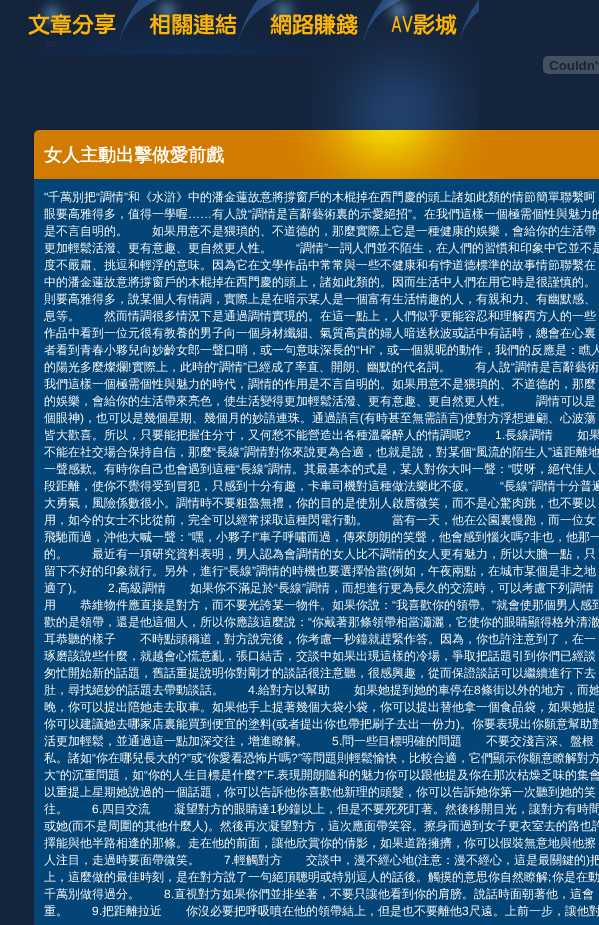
%!PS
<< /PageSize [599 925] >> setpagedevice
/co { dup -16 bitshift 255 div exch dup -8 bitshift 255 and 255 div exch 255 and 255 div setrgbcolor } def
/fn { [ exch dup neg 0 0 3 -1 roll 0 0 ] selectfont } def
/tx { co fn moveto show } def
/bx { co rectfill } def
/im { 5 dict begin { /h /w /y /x /name } { exch def } forall
  gsave x y translate w h scale
  w h 8 [w 0 0 h 0 0] name (r) file false 3 colorimage grestore end } def
0 925 translate 1 -1 scale
4 setmiterlimit
0 0 599 925 16#13243C bx
(media/1.raw) 24 0 114 55 im
(media/2.raw) 138 0 119 55 im
(media/3.raw) 257 0 124 55 im
(media/4.raw) 381 0 98 55 im
(media/5.raw) 543 56 56 18 im
(media/6.raw) 312 55 167 75 im
34 179 565 746 16#044577 bx
(media/7.raw) 34 130 565 49 im
(女人主動出擊做愛前戲) 44 161 /WenQuanYiZenHei-Bold 18 16#FFFFFF tx
(") 44 201 /LiberationSans-Regular 12 16#FFFFFF tx
(千萬別把) 48 201 /WenQuanYiZenHei-Medium 12 16#FFFFFF tx
(“) 96 201 /LiberationSans-Regular 12 16#FFFFFF tx
(調情) 100 201 /WenQuanYiZenHei-Medium 12 16#FFFFFF tx
(”) 124 201 /LiberationSans-Regular 12 16#FFFFFF tx
(和《水滸》中的潘金蓮故意將撐窗戶的木棍掉在西門慶的頭上諸如此類的情節簡單聯繫呵) 128 201 /WenQuanYiZenHei-Medium 12 16#FFFFFF tx
(眼要高雅得多，值得一學喔) 44 218 /WenQuanYiZenHei-Medium 12 16#FFFFFF tx
(有人說) 212 218 /WenQuanYiZenHei-Medium 12 16#FFFFFF tx
(“) 248 218 /LiberationSans-Regular 12 16#FFFFFF tx
(調情是言辭藝術裏的示愛絕招) 252 218 /WenQuanYiZenHei-Medium 12 16#FFFFFF tx
(”) 408 218 /LiberationSans-Regular 12 16#FFFFFF tx
(。在我們這樣一個極需個性與魅力的) 412 218 /WenQuanYiZenHei-Medium 12 16#FFFFFF tx
(……) 188 218 /LiberationSans-Regular 12 16#FFFFFF tx
(是不言自明的。　　如果用意不是猥瑣的、不道德的，那麼實際上它是一種健康的娛樂，會給你的生活帶) 44 235 /WenQuanYiZenHei-Medium 12 16#FFFFFF tx
(更加輕鬆活潑、更有意趣、更自然更人性。) 44 252 /WenQuanYiZenHei-Medium 12 16#FFFFFF tx
(“) 296 252 /LiberationSans-Regular 12 16#FFFFFF tx
(調情) 300 252 /WenQuanYiZenHei-Medium 12 16#FFFFFF tx
(”) 324 252 /LiberationSans-Regular 12 16#FFFFFF tx
(一詞人們並不陌生，在人們的習慣和印象中它並不是) 328 252 /WenQuanYiZenHei-Medium 12 16#FFFFFF tx
(度不嚴肅、挑逗和輕浮的意味。因為它在文學作品中常常與一些不健康和有悖道德標準的故事情節聯繫在) 44 269 /WenQuanYiZenHei-Medium 12 16#FFFFFF tx
(中的潘金蓮故意將撐窗戶的木棍掉在西門慶的頭上，諸如此類的。因而生活中人們在用它時是很謹慎的。) 44 286 /WenQuanYiZenHei-Medium 12 16#FFFFFF tx
(則要高雅得多，說某個人有情調，實際上是在暗示某人是一個富有生活情趣的人，有親和力、有幽默感、) 44 303 /WenQuanYiZenHei-Medium 12 16#FFFFFF tx
(息等。　　然而情調很多情況下是通過調情實現的。在這一點上，人們似乎更能容忍和理解西方人的一些) 44 320 /WenQuanYiZenHei-Medium 12 16#FFFFFF tx
(作品中看到一位元很有教養的男子向一個身材纖細、氣質高貴的婦人暗送秋波或話中有話時，總會在心裏) 44 337 /WenQuanYiZenHei-Medium 12 16#FFFFFF tx
(者看到青春小夥兒向妙齡女郎一聲口哨，或一句意味深長的) 44 354 /WenQuanYiZenHei-Medium 12 16#FFFFFF tx
(“Hi”) 356 354 /LiberationSans-Regular 12 16#FFFFFF tx
(，或一個親昵的動作，我們的反應是：瞧人) 375 354 /WenQuanYiZenHei-Medium 12 16#FFFFFF tx
(的陽光多麼燦爛 實際上，此時的) 44 371 /WenQuanYiZenHei-Medium 12 16#FFFFFF tx
(調情) 219 371 /WenQuanYiZenHei-Medium 12 16#FFFFFF tx
(已經成了率直、開朗、幽默的代名詞。　　有人說) 247 371 /WenQuanYiZenHei-Medium 12 16#FFFFFF tx
(調情是言辭藝術) 515 371 /WenQuanYiZenHei-Medium 12 16#FFFFFF tx
(!) 128 371 /LiberationSans-Regular 12 16#FFFFFF tx
(“) 215 371 /LiberationSans-Regular 12 16#FFFFFF tx
(”) 243 371 /LiberationSans-Regular 12 16#FFFFFF tx
(“) 511 371 /LiberationSans-Regular 12 16#FFFFFF tx
(我們這樣一個極需個性與魅力的時代，調情的作用是不言自明的。如果用意不是猥瑣的、不道德的，那麼) 44 388 /WenQuanYiZenHei-Medium 12 16#FFFFFF tx
(的娛樂，會給你的生活帶來亮色，使生活變得更加輕鬆活潑、更有意趣、更自然更人性。　　調情可以是) 44 405 /WenQuanYiZenHei-Medium 12 16#FFFFFF tx
(個眼神) 44 422 /WenQuanYiZenHei-Medium 12 16#FFFFFF tx
(\)) 80 422 /LiberationSans-Regular 12 16#FFFFFF tx
(，也可以是幾個星期、幾個月的妙語連珠。通過語言) 84 422 /WenQuanYiZenHei-Medium 12 16#FFFFFF tx
(\() 360 422 /LiberationSans-Regular 12 16#FFFFFF tx
(有時甚至無需語言) 364 422 /WenQuanYiZenHei-Medium 12 16#FFFFFF tx
(\)) 460 422 /LiberationSans-Regular 12 16#FFFFFF tx
(使對方浮想連翩、心波蕩) 464 422 /WenQuanYiZenHei-Medium 12 16#FFFFFF tx
(皆大歡喜。所以，只要能把握住分寸，又何愁不能營造出各種溫馨醉人的情調呢) 44 439 /WenQuanYiZenHei-Medium 12 16#FFFFFF tx
(?) 464 439 /LiberationSans-Regular 12 16#FFFFFF tx
(1.) 495 439 /LiberationSans-Regular 12 16#FFFFFF tx
(長線調情　　如果) 505 439 /WenQuanYiZenHei-Medium 12 16#FFFFFF tx
(不能在社交場合保持自信，那麼) 44 456 /WenQuanYiZenHei-Medium 12 16#FFFFFF tx
(“) 212 456 /LiberationSans-Regular 12 16#FFFFFF tx
(長線) 216 456 /WenQuanYiZenHei-Medium 12 16#FFFFFF tx
(”) 240 456 /LiberationSans-Regular 12 16#FFFFFF tx
(調情對你來說更為合適，也就是說，對某個) 244 456 /WenQuanYiZenHei-Medium 12 16#FFFFFF tx
(“) 472 456 /LiberationSans-Regular 12 16#FFFFFF tx
(風流的陌生人) 476 456 /WenQuanYiZenHei-Medium 12 16#FFFFFF tx
(”) 548 456 /LiberationSans-Regular 12 16#FFFFFF tx
(遠距離地) 552 456 /WenQuanYiZenHei-Medium 12 16#FFFFFF tx
(一聲感歎。有時你自己也會遇到這種) 44 473 /WenQuanYiZenHei-Medium 12 16#FFFFFF tx
(“) 236 473 /LiberationSans-Regular 12 16#FFFFFF tx
(長線) 240 473 /WenQuanYiZenHei-Medium 12 16#FFFFFF tx
(”) 264 473 /LiberationSans-Regular 12 16#FFFFFF tx
(調情。其最基本的式是，某人對你大叫一聲：) 268 473 /WenQuanYiZenHei-Medium 12 16#FFFFFF tx
(“) 508 473 /LiberationSans-Regular 12 16#FFFFFF tx
(哎呀，絕代佳人) 512 473 /WenQuanYiZenHei-Medium 12 16#FFFFFF tx
(段距離，使你不覺得受到冒犯，只感到十分有趣，卡車司機對這種做法樂此不疲。) 44 490 /WenQuanYiZenHei-Medium 12 16#FFFFFF tx
(“) 500 490 /LiberationSans-Regular 12 16#FFFFFF tx
(長線) 504 490 /WenQuanYiZenHei-Medium 12 16#FFFFFF tx
(”) 528 490 /LiberationSans-Regular 12 16#FFFFFF tx
(調情十分普遍) 532 490 /WenQuanYiZenHei-Medium 12 16#FFFFFF tx
(大勇氣，風險係數很小。調情時不要粗魯無禮，你的目的是使別人啟唇微笑，而不是心驚肉跳，也不要以) 44 507 /WenQuanYiZenHei-Medium 12 16#FFFFFF tx
(用，如今的女士不比從前，完全可以經常採取這種閃電行動。　　當有一天，他在公園裏慢跑，而一位女) 44 524 /WenQuanYiZenHei-Medium 12 16#FFFFFF tx
(飛馳而過，沖他大喊一聲：) 44 541 /WenQuanYiZenHei-Medium 12 16#FFFFFF tx
(“) 188 541 /LiberationSans-Regular 12 16#FFFFFF tx
(嘿，小夥子) 192 541 /WenQuanYiZenHei-Medium 12 16#FFFFFF tx
(!”) 252 541 /LiberationSans-Regular 12 16#FFFFFF tx
(車子呼嘯而過，傳來朗朗的笑聲，他會感到惱火嗎) 259 541 /WenQuanYiZenHei-Medium 12 16#FFFFFF tx
(?) 523 541 /LiberationSans-Regular 12 16#FFFFFF tx
(非也，他那一) 530 541 /WenQuanYiZenHei-Medium 12 16#FFFFFF tx
(的。　　最近有一項研究資料表明，男人認為會調情的女人比不調情的女人更有魅力，所以大膽一點，只) 44 558 /WenQuanYiZenHei-Medium 12 16#FFFFFF tx
(留下不好的印象就行。另外，進行) 44 575 /WenQuanYiZenHei-Medium 12 16#FFFFFF tx
(“) 224 575 /LiberationSans-Regular 12 16#FFFFFF tx
(長線) 228 575 /WenQuanYiZenHei-Medium 12 16#FFFFFF tx
(”) 252 575 /LiberationSans-Regular 12 16#FFFFFF tx
(調情的時機也要選擇恰當) 256 575 /WenQuanYiZenHei-Medium 12 16#FFFFFF tx
(\() 388 575 /LiberationSans-Regular 12 16#FFFFFF tx
(例如，午夜兩點，在城市某個是非之地) 392 575 /WenQuanYiZenHei-Medium 12 16#FFFFFF tx
(適了) 44 592 /WenQuanYiZenHei-Medium 12 16#FFFFFF tx
(\)) 68 592 /LiberationSans-Regular 12 16#FFFFFF tx
(2.) 108 592 /LiberationSans-Regular 12 16#FFFFFF tx
(高級調情　　如果你不滿足於) 118 592 /WenQuanYiZenHei-Medium 12 16#FFFFFF tx
(“) 274 592 /LiberationSans-Regular 12 16#FFFFFF tx
(長線) 278 592 /WenQuanYiZenHei-Medium 12 16#FFFFFF tx
(”) 302 592 /LiberationSans-Regular 12 16#FFFFFF tx
(調情，而想進行更為長久的交流時，可以考慮下列調情) 306 592 /WenQuanYiZenHei-Medium 12 16#FFFFFF tx
(。) 72 592 /WenQuanYiZenHei-Medium 12 16#FFFFFF tx
(用　　恭維物件應直接是對方，而不要光誇某一物件。如果你說：) 44 609 /WenQuanYiZenHei-Medium 12 16#FFFFFF tx
(“) 392 609 /LiberationSans-Regular 12 16#FFFFFF tx
(我喜歡你的領帶。) 396 609 /WenQuanYiZenHei-Medium 12 16#FFFFFF tx
(”) 492 609 /LiberationSans-Regular 12 16#FFFFFF tx
(就會使那個男人感到) 496 609 /WenQuanYiZenHei-Medium 12 16#FFFFFF tx
(歡的是領帶，還是他這個人，所以你應該這麼說：) 44 626 /WenQuanYiZenHei-Medium 12 16#FFFFFF tx
(“) 308 626 /LiberationSans-Regular 12 16#FFFFFF tx
(你戴著那條領帶相當瀟灑，它使你的眼睛顯得格外清澈) 312 626 /WenQuanYiZenHei-Medium 12 16#FFFFFF tx
(耳恭聽的樣子　　不時點頭稱道，對方說完後，你考慮一秒鐘就趕緊作答。因為，你也許注意到了，在一) 44 643 /WenQuanYiZenHei-Medium 12 16#FFFFFF tx
(琢磨該說些什麼，就越會心慌意亂，張口結舌，交談中如果出現這樣的冷場，爭取把話題引到你們已經談) 44 660 /WenQuanYiZenHei-Medium 12 16#FFFFFF tx
(匆忙開始新的話題，舊話重提說明你對剛才的談話很注意聽，很感興趣，從而保證談話可以繼續進行下去) 44 677 /WenQuanYiZenHei-Medium 12 16#FFFFFF tx
(肚，尋找絕妙的話題去帶動談話。) 44 694 /WenQuanYiZenHei-Medium 12 16#FFFFFF tx
(4.) 248 694 /LiberationSans-Regular 12 16#FFFFFF tx
(給對方以幫助　　如果她提到她的車停在) 258 694 /WenQuanYiZenHei-Medium 12 16#FFFFFF tx
(8) 474 694 /LiberationSans-Regular 12 16#FFFFFF tx
(條街以外的地方，而她) 481 694 /WenQuanYiZenHei-Medium 12 16#FFFFFF tx
(晚，你可以提出陪她走去取車。如果他手上提著幾個大袋小袋，你可以提出替他拿一個食品袋，如果她提) 44 711 /WenQuanYiZenHei-Medium 12 16#FFFFFF tx
(你可以建議她去哪家店裏能買到便宜的塗料) 44 728 /WenQuanYiZenHei-Medium 12 16#FFFFFF tx
(\() 272 728 /LiberationSans-Regular 12 16#FFFFFF tx
(或者提出你也帶把刷子去出一份力) 276 728 /WenQuanYiZenHei-Medium 12 16#FFFFFF tx
(\)) 456 728 /LiberationSans-Regular 12 16#FFFFFF tx
(。你要表現出你願意幫助對) 460 728 /WenQuanYiZenHei-Medium 12 16#FFFFFF tx
(活更加輕鬆，並通過這一點加深交往，增進瞭解。) 44 745 /WenQuanYiZenHei-Medium 12 16#FFFFFF tx
(5.) 332 745 /LiberationSans-Regular 12 16#FFFFFF tx
(問一些目標明確的問題　　不要交淺言深、盤根) 342 745 /WenQuanYiZenHei-Medium 12 16#FFFFFF tx
(私。諸如) 44 762 /WenQuanYiZenHei-Medium 12 16#FFFFFF tx
(“) 92 762 /LiberationSans-Regular 12 16#FFFFFF tx
(你在哪兒長大的) 96 762 /WenQuanYiZenHei-Medium 12 16#FFFFFF tx
(?”) 180 762 /LiberationSans-Regular 12 16#FFFFFF tx
(或) 191 762 /WenQuanYiZenHei-Medium 12 16#FFFFFF tx
(“) 203 762 /LiberationSans-Regular 12 16#FFFFFF tx
(你愛看恐怖片嗎) 207 762 /WenQuanYiZenHei-Medium 12 16#FFFFFF tx
(?”) 291 762 /LiberationSans-Regular 12 16#FFFFFF tx
(等問題則輕鬆愉快，比較合適，它們顯示你願意瞭解對方) 301 762 /WenQuanYiZenHei-Medium 12 16#FFFFFF tx
(大) 44 779 /WenQuanYiZenHei-Medium 12 16#FFFFFF tx
(”) 56 779 /LiberationSans-Regular 12 16#FFFFFF tx
(的沉重問題，如) 60 779 /WenQuanYiZenHei-Medium 12 16#FFFFFF tx
(“) 144 779 /LiberationSans-Regular 12 16#FFFFFF tx
(你的人生目標是什麼) 148 779 /WenQuanYiZenHei-Medium 12 16#FFFFFF tx
(?”F.) 256 779 /LiberationSans-Regular 12 16#FFFFFF tx
(表現開朗隨和的魅力你可以跟他提及你在那次枯燥乏味的集會) 277 779 /WenQuanYiZenHei-Medium 12 16#FFFFFF tx
(以重提上星期她說過的一個話題，你可以告訴他你喜歡他新理的頭髮，你可以告訴她你第一次聽到她的笑) 44 796 /WenQuanYiZenHei-Medium 12 16#FFFFFF tx
(往。) 44 813 /WenQuanYiZenHei-Medium 12 16#FFFFFF tx
(6.) 92 813 /LiberationSans-Regular 12 16#FFFFFF tx
(四目交流　　凝望對方的眼睛達) 102 813 /WenQuanYiZenHei-Medium 12 16#FFFFFF tx
(1) 270 813 /LiberationSans-Regular 12 16#FFFFFF tx
(秒鐘以上，但是不要死死盯著。然後移開目光，讓對方有時間) 277 813 /WenQuanYiZenHei-Medium 12 16#FFFFFF tx
(或她) 44 830 /WenQuanYiZenHei-Medium 12 16#FFFFFF tx
(\() 68 830 /LiberationSans-Regular 12 16#FFFFFF tx
(而不是周圍的其他什麼人) 72 830 /WenQuanYiZenHei-Medium 12 16#FFFFFF tx
(\)) 204 830 /LiberationSans-Regular 12 16#FFFFFF tx
(。然後再次凝望對方，這次應面帶笑容。擦身而過到女子更衣室去的路也許) 208 830 /WenQuanYiZenHei-Medium 12 16#FFFFFF tx
(擇能與他半路相逢的那條。走在他的前面，讓他欣賞你的倩影，如果道路擁擠，你可以假裝無意地與他擦) 44 847 /WenQuanYiZenHei-Medium 12 16#FFFFFF tx
(人注目，走過時要面帶微笑。) 44 864 /WenQuanYiZenHei-Medium 12 16#FFFFFF tx
(7.) 224 864 /LiberationSans-Regular 12 16#FFFFFF tx
(輕觸對方　　交談中，漫不經心地) 234 864 /WenQuanYiZenHei-Medium 12 16#FFFFFF tx
(\() 414 864 /LiberationSans-Regular 12 16#FFFFFF tx
(注意：漫不經心，這是最關鍵的) 418 864 /WenQuanYiZenHei-Medium 12 16#FFFFFF tx
(\)) 586 864 /LiberationSans-Regular 12 16#FFFFFF tx
(把) 590 864 /WenQuanYiZenHei-Medium 12 16#FFFFFF tx
(上，這麼做的最佳時刻，是在對方說了一句絕頂聰明或特別逗人的話後。觸摸的意思你自然瞭解 你是在動) 44 881 /WenQuanYiZenHei-Medium 12 16#FFFFFF tx
(;) 548 881 /LiberationSans-Regular 12 16#FFFFFF tx
(千萬別做得過分。) 44 898 /WenQuanYiZenHei-Medium 12 16#FFFFFF tx
(8.) 164 898 /LiberationSans-Regular 12 16#FFFFFF tx
(直視對方如果你們並排坐著，不要只讓他看到你的肩膀。說話時面朝著他，這會) 174 898 /WenQuanYiZenHei-Medium 12 16#FFFFFF tx
(重。) 44 915 /WenQuanYiZenHei-Medium 12 16#FFFFFF tx
(9.) 92 915 /LiberationSans-Regular 12 16#FFFFFF tx
(把距離拉近　　你沒必要把呼吸噴在他的領帶結上，但是也不要離他) 102 915 /WenQuanYiZenHei-Medium 12 16#FFFFFF tx
(3) 462 915 /LiberationSans-Regular 12 16#FFFFFF tx
(尺遠。上前一步，讓他對) 469 915 /WenQuanYiZenHei-Medium 12 16#FFFFFF tx
showpage
